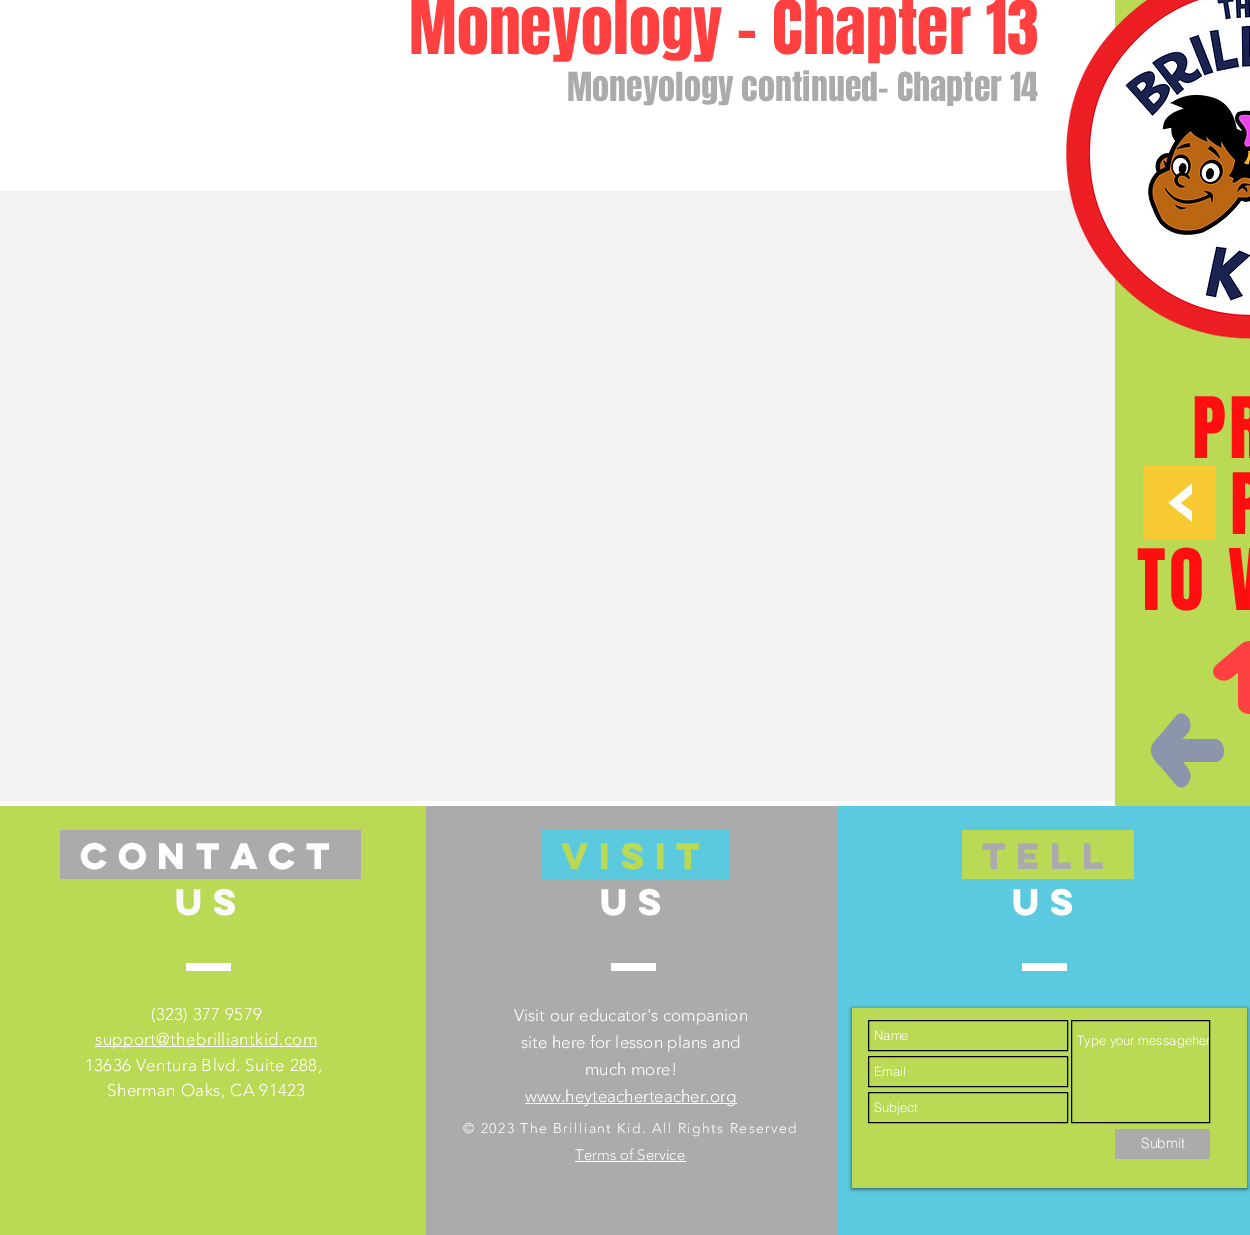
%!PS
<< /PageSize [1250 1235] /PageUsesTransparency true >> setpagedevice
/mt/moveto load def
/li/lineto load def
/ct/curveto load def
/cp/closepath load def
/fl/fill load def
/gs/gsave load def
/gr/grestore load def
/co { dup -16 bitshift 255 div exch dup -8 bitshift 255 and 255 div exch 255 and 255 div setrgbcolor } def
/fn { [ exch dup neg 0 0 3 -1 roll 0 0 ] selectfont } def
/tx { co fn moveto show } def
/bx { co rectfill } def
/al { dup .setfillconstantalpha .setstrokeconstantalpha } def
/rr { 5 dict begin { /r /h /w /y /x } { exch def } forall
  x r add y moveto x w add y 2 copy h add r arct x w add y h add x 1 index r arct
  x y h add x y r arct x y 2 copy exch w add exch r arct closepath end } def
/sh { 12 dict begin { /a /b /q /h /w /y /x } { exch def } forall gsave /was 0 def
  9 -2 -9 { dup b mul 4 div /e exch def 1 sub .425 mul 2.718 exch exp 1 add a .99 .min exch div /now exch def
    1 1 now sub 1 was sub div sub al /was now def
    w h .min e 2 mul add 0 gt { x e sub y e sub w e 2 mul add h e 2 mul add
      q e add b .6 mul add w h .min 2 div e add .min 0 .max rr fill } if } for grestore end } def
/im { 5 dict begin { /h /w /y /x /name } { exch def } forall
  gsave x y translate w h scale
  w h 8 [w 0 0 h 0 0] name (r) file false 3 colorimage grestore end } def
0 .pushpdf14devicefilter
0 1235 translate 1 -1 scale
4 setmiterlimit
0 0 1250 1235 16#FFFFFF bx
0 191 1115 610 16#F2F2F2 bx
1115 0 135 806 16#BADA55 bx
(media/1.raw) 1066 0 184 339 im
1168 483 24 39 16#FFFFFF bx
16#F7CA34 co
1143 539 mt 1216 539 li 1216 466 li 1143 466 li cp 1192 494 mt 1181 503 li 1192 511 li 1192 522 li 1168 503 li 1192 483 li cp fl
(media/2.raw) 1213 641 37 73 im
16#8D95AC co
1151 750 mt 1151 743 1157 739 1161 734 ct 1177 715 li 1185 710 1192 720 1190 728 ct 1189 733 1185 736 1182 739 ct 1215 739 li 1220 739 1224 745 1224 751 ct 1224 757 1220 762 1215 762 ct 1183 762 li 1185 765 1189 769 1190 773 ct 1192 781 1185 791 1177 786 ct 1161 767 li 1156 762 1151 757 1151 750 ct cp fl
426 806 412 429 16#ACABAB bx
0 806 426 429 16#BADA55 bx
60 830 301 49 16#ACABAB bx
186 963 45 8 16#FFFFFF bx
95 1046 222 1 16#FFFFFF bx
541 830 189 49 16#5BC9DE bx
611 963 45 8 16#FFFFFF bx
525 1103 212 1 16#FFFFFF bx
575 1161 111 1 16#FFFFFF bx
838 806 412 429 16#5BC9DE bx
962 830 172 49 16#BADA55 bx
1022 963 45 8 16#FFFFFF bx
16#000000 co
852 1009 395 180 0 2 .6 sh
852 1008 395 180 16#BADA55 bx
16#000000 co
868.5 1020.5 199 30 rectstroke
1071.5 1020.5 138 102 rectstroke
868.5 1056.5 199 30 rectstroke
868.5 1092.5 199 30 rectstroke
1115 1129 95 30 16#ACABAB bx
(Moneyology - Chapter 13) 409 54 /Anton-Regular 64 16#FF4040 tx
(Moneyology continued- Chapter 14) 567 101 /Anton-Regular 34 16#ACABAB tx
/Anton-Regular 72 fn
16#FF0F0F co
1192 458 mt 3.5 0 (PR) ashow
1230 534 mt 3.5 0 (P) ashow
1137 610 mt 3.5 0 (TO V) ashow
/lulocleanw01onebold-Bold 33 fn
16#FFFFFF co
80 869 mt 3.25 0 (CONTACT) ashow
16#F9F9F9 co
175 915 mt 3.25 0 (US) ashow
/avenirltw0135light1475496-Light 17 fn
16#FFFFFF co
151 1020 mt .35 0 (\(323\) 377 9579) ashow
95 1045 mt .35 0 (support@thebrilliantkid.com) ashow
85 1071 mt .35 0 (13636 Ventura Blvd. Suite 288,) ashow
107 1096 mt .35 0 (Sherman Oaks, CA 91423) ashow
/lulocleanw01onebold-Bold 33 fn
16#BADA55 co
561 869 mt 3.25 0 (VISIT) ashow
16#FFFFFF co
600 915 mt 3.25 0 (US) ashow
(Visit our educator's companion) 514 1021 /avenirltw0135light1475496-Light 17 16#FFFFFF tx
(site here for lesson plans and) 521 1048 /avenirltw0135light1475496-Light 17 16#FFFFFF tx
(much more!) 585 1075 /avenirltw0135light1475496-Light 17 16#FFFFFF tx
(www.heyteacherteacher.org) 525 1102 /avenirltw0135light1475496-Light 17 16#FFFFFF tx
/avenirltw0135light1475496-Light 14 fn
463 1133 mt 1.4 0 (© 2023 The Brilliant Kid. All Rights Reserved) ashow
(Terms of Service) 575 1160 /avenirltw0135light1475496-Light 15 16#FFFFFF tx
/lulocleanw01onebold-Bold 33 fn
16#ACABAB co
982 869 mt 3.25 0 (TELL) ashow
16#FFFFFF co
1012 915 mt 3.25 0 (US) ashow
(Name) 874 1040 /helvetica-Light 13 16#FFFFFF tx
(Type your message) 1077 1045 /helvetica-Light 13 16#FFFFFF tx
gs
1072 1021 137 101 rectclip
(her) 1192 1045 /helvetica-Light 13 16#FFFFFF tx
gr
(Email) 874 1076 /helvetica-Light 13 16#FFFFFF tx
(Subject) 874 1112 /helvetica-Light 13 16#FFFFFF tx
(Submit) 1141 1148 /helvetica-Light 14 16#FFFFFF tx
.poppdf14devicefilter showpage
